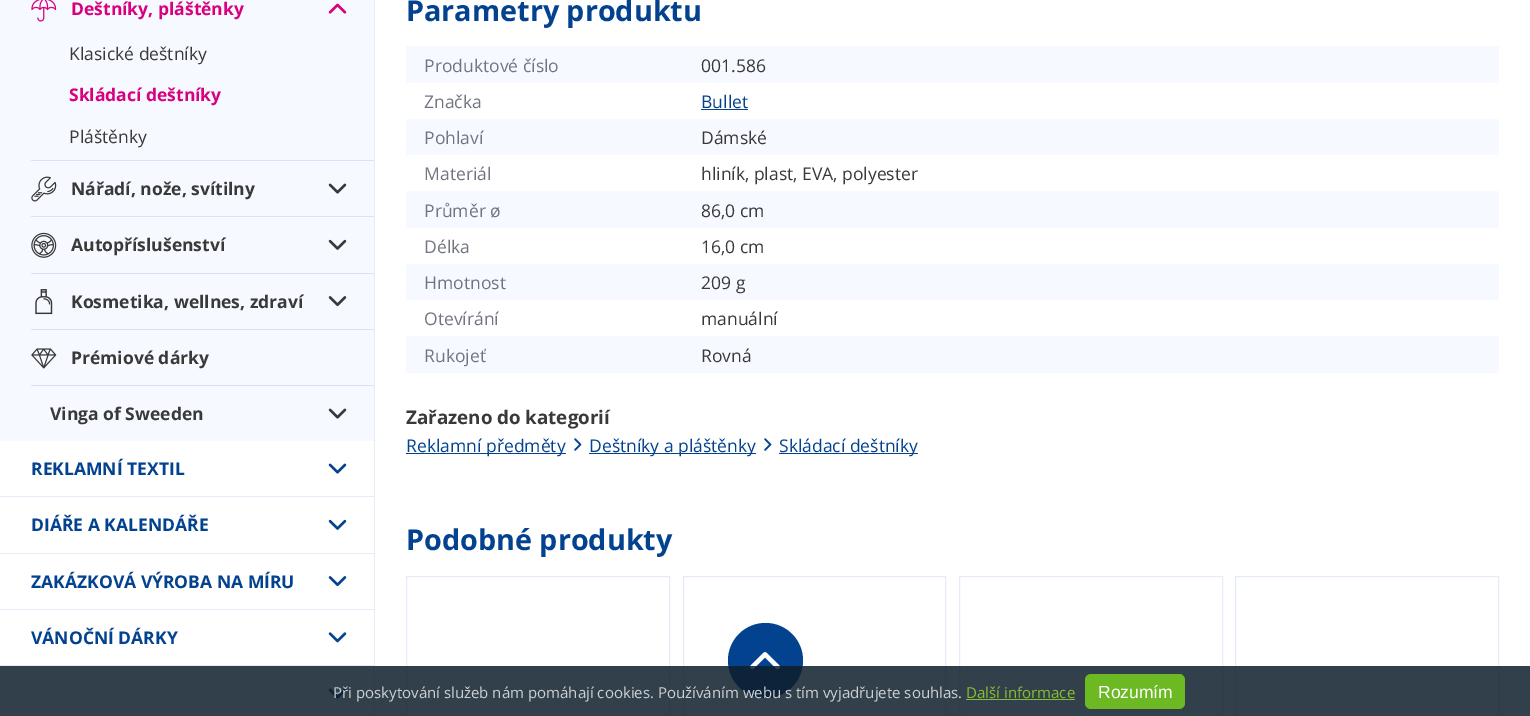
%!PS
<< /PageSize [1530 716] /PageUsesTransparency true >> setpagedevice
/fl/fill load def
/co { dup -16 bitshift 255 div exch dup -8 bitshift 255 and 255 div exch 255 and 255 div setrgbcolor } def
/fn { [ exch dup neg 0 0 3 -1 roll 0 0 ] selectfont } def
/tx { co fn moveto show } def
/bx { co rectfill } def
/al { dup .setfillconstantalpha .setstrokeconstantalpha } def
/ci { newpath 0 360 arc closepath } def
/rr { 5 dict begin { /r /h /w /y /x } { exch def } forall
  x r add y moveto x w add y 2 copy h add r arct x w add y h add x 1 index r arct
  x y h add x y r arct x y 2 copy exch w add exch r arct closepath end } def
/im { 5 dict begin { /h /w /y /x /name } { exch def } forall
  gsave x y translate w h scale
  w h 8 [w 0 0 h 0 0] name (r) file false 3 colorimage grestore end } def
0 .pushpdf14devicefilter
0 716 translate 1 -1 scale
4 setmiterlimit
0 0 1530 716 16#FFFFFF bx
0 0 374 441 16#F6F9FF bx
31 160 343 1 16#D9E3F7 bx
(media/1.raw) 31 0 26 22 im
(media/2.raw) 328 3 19 11 im
31 216 343 1 16#D9E3F7 bx
(media/3.raw) 31 176 26 26 im
(media/4.raw) 328 183 19 11 im
31 273 343 1 16#D9E3F7 bx
(media/5.raw) 31 232 26 26 im
(media/6.raw) 328 239 19 11 im
31 329 343 1 16#D9E3F7 bx
(media/7.raw) 35 289 18 26 im
(media/8.raw) 328 296 19 11 im
31 385 343 1 16#D9E3F7 bx
(media/9.raw) 31 348 26 21 im
(media/4.raw) 328 408 19 11 im
0 496 374 1 16#E5EBF7 bx
(media/10.raw) 328 463 19 11 im
0 553 374 1 16#E5EBF7 bx
(media/11.raw) 328 519 19 11 im
0 609 374 1 16#E5EBF7 bx
(media/12.raw) 328 576 19 11 im
0 665 374 1 16#E5EBF7 bx
(media/13.raw) 328 632 19 11 im
(media/10.raw) 328 688 19 11 im
406 46 1093 37 16#F6F9FF bx
701 109 47 1 16#03428E bx
406 119 1093 36 16#F6F9FF bx
406 191 1093 37 16#F6F9FF bx
406 264 1093 36 16#F6F9FF bx
406 336 1093 37 16#F6F9FF bx
406 453 160 1 16#03428E bx
(media/14.raw) 574 438 8 13 im
589 453 167 1 16#03428E bx
(media/14.raw) 764 438 8 13 im
779 453 139 1 16#03428E bx
16#E5EBF7 co
406.5 576.5 263 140 rectstroke
683.5 576.5 262 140 rectstroke
959.5 576.5 263 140 rectstroke
1235.5 576.5 263 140 rectstroke
374 0 1 716 16#E5EBF7 bx
16#03428F co
765.5 660.5 37.5 ci fl
(media/15.raw) 750 652 30 18 im
0.85 al
0 666 1530 50 16#0E1E2B bx
1 al
966 699 109 1 16#88BD2F bx
16#6CB924 co
1085 674 100 35 6 rr fl
(Deštníky, pláštěnky) 71 15 /OpenSans-Bold 17.5 16#D9007F tx
(Klasické deštníky) 69 60 /OpenSans-Regular 17.5 16#393939 tx
(Skládací deštníky) 69 101 /OpenSans-Bold 17.5 16#D9007F tx
(Pláštěnky) 69 143 /OpenSans-Regular 17.5 16#393939 tx
(Nářadí, nože, svítilny) 71 195 /OpenSans-Bold 17.5 16#393939 tx
(Autopříslušenství) 71 251 /OpenSans-Bold 17.5 16#393939 tx
(Kosmetika, wellnes, zdraví) 71 308 /OpenSans-Bold 17.5 16#393939 tx
(Prémiové dárky) 71 364 /OpenSans-Bold 17.5 16#393939 tx
(Vinga of Sweeden) 50 420 /OpenSans-Bold 17.5 16#393939 tx
(REKLAMNÍ TEXTIL) 31 475 /OpenSans-Bold 17.5 16#03428E tx
(DIÁŘE A KALENDÁŘE) 31 531 /OpenSans-Bold 17.5 16#03428E tx
(ZAKÁZKOVÁ VÝROBA NA MÍRU) 31 588 /OpenSans-Bold 17.5 16#03428E tx
(VÁNOČNÍ DÁRKY) 31 644 /OpenSans-Bold 17.5 16#03428E tx
(Parametry produktu) 406 21 /OpenSans-Bold 28.75 16#03428E tx
(Produktové číslo) 424 72 /OpenSans-Regular 17.5 16#707580 tx
(001.586) 701 72 /OpenSans-Regular 17.5 16#393939 tx
(Značka) 424 108 /OpenSans-Regular 17.5 16#707580 tx
(Bullet) 701 108 /OpenSans-Regular 17.5 16#03428E tx
(Pohlaví) 424 144 /OpenSans-Regular 17.5 16#707580 tx
(Dámské) 701 144 /OpenSans-Regular 17.5 16#393939 tx
(Materiál) 424 180 /OpenSans-Regular 17.5 16#707580 tx
(hliník, plast, EVA, polyester) 701 180 /OpenSans-Regular 17.5 16#393939 tx
(Průměr ø) 424 217 /OpenSans-Regular 17.5 16#707580 tx
(86,0 cm) 701 217 /OpenSans-Regular 17.5 16#393939 tx
(Délka) 424 253 /OpenSans-Regular 17.5 16#707580 tx
(16,0 cm) 701 253 /OpenSans-Regular 17.5 16#393939 tx
(Hmotnost) 424 289 /OpenSans-Regular 17.5 16#707580 tx
(209 g) 701 289 /OpenSans-Regular 17.5 16#393939 tx
(Otevírání) 424 325 /OpenSans-Regular 17.5 16#707580 tx
(manuální) 701 325 /OpenSans-Regular 17.5 16#393939 tx
(Rukojeť) 424 362 /OpenSans-Regular 17.5 16#707580 tx
(Rovná) 701 362 /OpenSans-Regular 17.5 16#393939 tx
(Zařazeno do kategorií) 406 424 /OpenSans-Bold 18.75 16#393939 tx
(Reklamní předměty) 406 452 /OpenSans-Regular 17.5 16#03428E tx
(Deštníky a pláštěnky) 589 452 /OpenSans-Regular 17.5 16#03428E tx
(Skládací deštníky) 779 452 /OpenSans-Regular 17.5 16#03428E tx
(Podobné produkty) 406 550 /OpenSans-Bold 28.75 16#03428E tx
(Při poskytování služeb nám pomáhají cookies. Používáním webu s tím vyjadřujete souhlas.) 333 698 /OpenSans-Regular 15 16#CBCFD2 tx
(Další informace) 966 698 /OpenSans-Regular 15 16#88BD2F tx
(Rozumím) 1098 698 /LiberationSans-Regular 17.5 16#FFFFFF tx
.poppdf14devicefilter showpage
